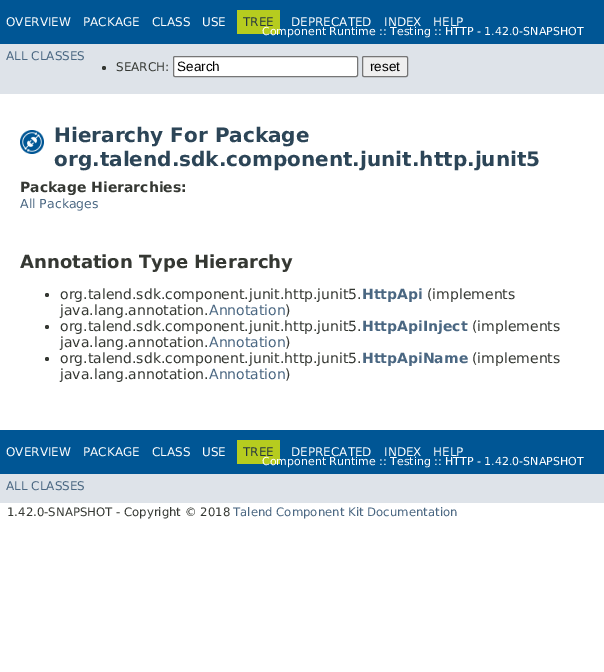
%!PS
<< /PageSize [604 672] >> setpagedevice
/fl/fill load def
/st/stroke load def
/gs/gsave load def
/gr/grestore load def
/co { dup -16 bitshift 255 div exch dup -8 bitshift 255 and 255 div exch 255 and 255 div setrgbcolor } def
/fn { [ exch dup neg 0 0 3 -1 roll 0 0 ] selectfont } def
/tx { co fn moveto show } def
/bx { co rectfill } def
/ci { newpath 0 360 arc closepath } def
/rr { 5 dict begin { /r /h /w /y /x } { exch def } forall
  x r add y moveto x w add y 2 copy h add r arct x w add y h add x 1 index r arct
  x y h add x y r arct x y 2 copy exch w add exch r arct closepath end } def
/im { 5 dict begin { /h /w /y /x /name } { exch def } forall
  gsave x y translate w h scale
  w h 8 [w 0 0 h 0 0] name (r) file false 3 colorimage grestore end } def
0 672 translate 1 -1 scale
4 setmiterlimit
0 0 604 672 16#FFFFFF bx
0 0 604 44 16#005695 bx
237 10 43 24 16#B6CC1F bx
0 44 604 50 16#DEE3E9 bx
16#353833 co
104 68 2 ci fl
16#FFFFFF co
173.5 56.5 184 20 1.5 rr gs fl gr
16#767676 co
st
16#EFEFEF co
362.5 56.5 45 20 1.5 rr gs fl gr
16#767676 co
st
(media/1.raw) 20 130 24 24 im
16#353833 co
47 295 2 ci fl
47 327 2 ci fl
47 359 2 ci fl
0 430 604 44 16#005695 bx
237 440 43 24 16#B6CC1F bx
0 474 604 29 16#DEE3E9 bx
(OVERVIEW) 6 26 /DejaVuSans-Regular 12 16#FFFFFF tx
(PACKAGE) 83 26 /DejaVuSans-Regular 12 16#FFFFFF tx
(CLASS) 152 26 /DejaVuSans-Regular 12 16#FFFFFF tx
(USE) 202 26 /DejaVuSans-Regular 12 16#FFFFFF tx
(TREE) 243 26 /DejaVuSans-Regular 12 16#253441 tx
(DEPRECATED) 291 26 /DejaVuSans-Regular 12 16#FFFFFF tx
(INDEX) 384 26 /DejaVuSans-Regular 12 16#FFFFFF tx
(HELP) 433 26 /DejaVuSans-Regular 12 16#FFFFFF tx
(Component Runtime :: Testing :: HTTP - 1.42.0-SNAPSHOT) 262 35 /DejaVuSans-Regular 11 16#FFFFFF tx
(ALL CLASSES) 6 60 /DejaVuSans-Regular 12 16#4A6782 tx
(SEARCH:) 116 71 /DejaVuSans-Regular 12 16#353833 tx
(Search) 177 71 /LiberationSans-Regular 13.5 16#000000 tx
(reset) 370 71 /LiberationSans-Regular 13.5 16#000000 tx
(Hierarchy For Package) 54 142 /DejaVuSans-Bold 20 16#2C4557 tx
(org.talend.sdk.component.junit.http.junit5) 54 166 /DejaVuSans-Bold 20 16#2C4557 tx
(Package Hierarchies:) 20 192 /DejaVuSans-Bold 14 16#353833 tx
(All Packages) 20 208 /DejaVuSans-Regular 12.5 16#4A6782 tx
(Annotation Type Hierarchy) 20 268 /DejaVuSans-Bold 18 16#353833 tx
(org.talend.sdk.component.junit.http.junit5.) 60 299 /DejaVuSans-Regular 14 16#353833 tx
(HttpApi) 362 299 /DejaVuSans-Bold 14 16#4A6782 tx
(\(implements) 427 299 /DejaVuSans-Regular 14 16#353833 tx
(java.lang.annotation.) 60 315 /DejaVuSans-Regular 14 16#353833 tx
(Annotation) 209 315 /DejaVuSans-Regular 14 16#4A6782 tx
(\)) 285 315 /DejaVuSans-Regular 14 16#353833 tx
(org.talend.sdk.component.junit.http.junit5.) 60 331 /DejaVuSans-Regular 14 16#353833 tx
(HttpApiInject) 362 331 /DejaVuSans-Bold 14 16#4A6782 tx
(\(implements) 472 331 /DejaVuSans-Regular 14 16#353833 tx
(java.lang.annotation.) 60 347 /DejaVuSans-Regular 14 16#353833 tx
(Annotation) 209 347 /DejaVuSans-Regular 14 16#4A6782 tx
(\)) 285 347 /DejaVuSans-Regular 14 16#353833 tx
(org.talend.sdk.component.junit.http.junit5.) 60 363 /DejaVuSans-Regular 14 16#353833 tx
(HttpApiName) 362 363 /DejaVuSans-Bold 14 16#4A6782 tx
(\(implements) 472 363 /DejaVuSans-Regular 14 16#353833 tx
(java.lang.annotation.) 60 379 /DejaVuSans-Regular 14 16#353833 tx
(Annotation) 209 379 /DejaVuSans-Regular 14 16#4A6782 tx
(\)) 285 379 /DejaVuSans-Regular 14 16#353833 tx
(OVERVIEW) 6 456 /DejaVuSans-Regular 12 16#FFFFFF tx
(PACKAGE) 83 456 /DejaVuSans-Regular 12 16#FFFFFF tx
(CLASS) 152 456 /DejaVuSans-Regular 12 16#FFFFFF tx
(USE) 202 456 /DejaVuSans-Regular 12 16#FFFFFF tx
(TREE) 243 456 /DejaVuSans-Regular 12 16#253441 tx
(DEPRECATED) 291 456 /DejaVuSans-Regular 12 16#FFFFFF tx
(INDEX) 384 456 /DejaVuSans-Regular 12 16#FFFFFF tx
(HELP) 433 456 /DejaVuSans-Regular 12 16#FFFFFF tx
(Component Runtime :: Testing :: HTTP - 1.42.0-SNAPSHOT) 262 465 /DejaVuSans-Regular 11 16#FFFFFF tx
(ALL CLASSES) 6 490 /DejaVuSans-Regular 12 16#4A6782 tx
(1.42.0-SNAPSHOT - Copyright © 2018) 7 516 /DejaVuSans-Regular 11.7 16#353833 tx
(Talend Component Kit Documentation) 233 516 /DejaVuSans-Regular 11.7 16#4A6782 tx
showpage
